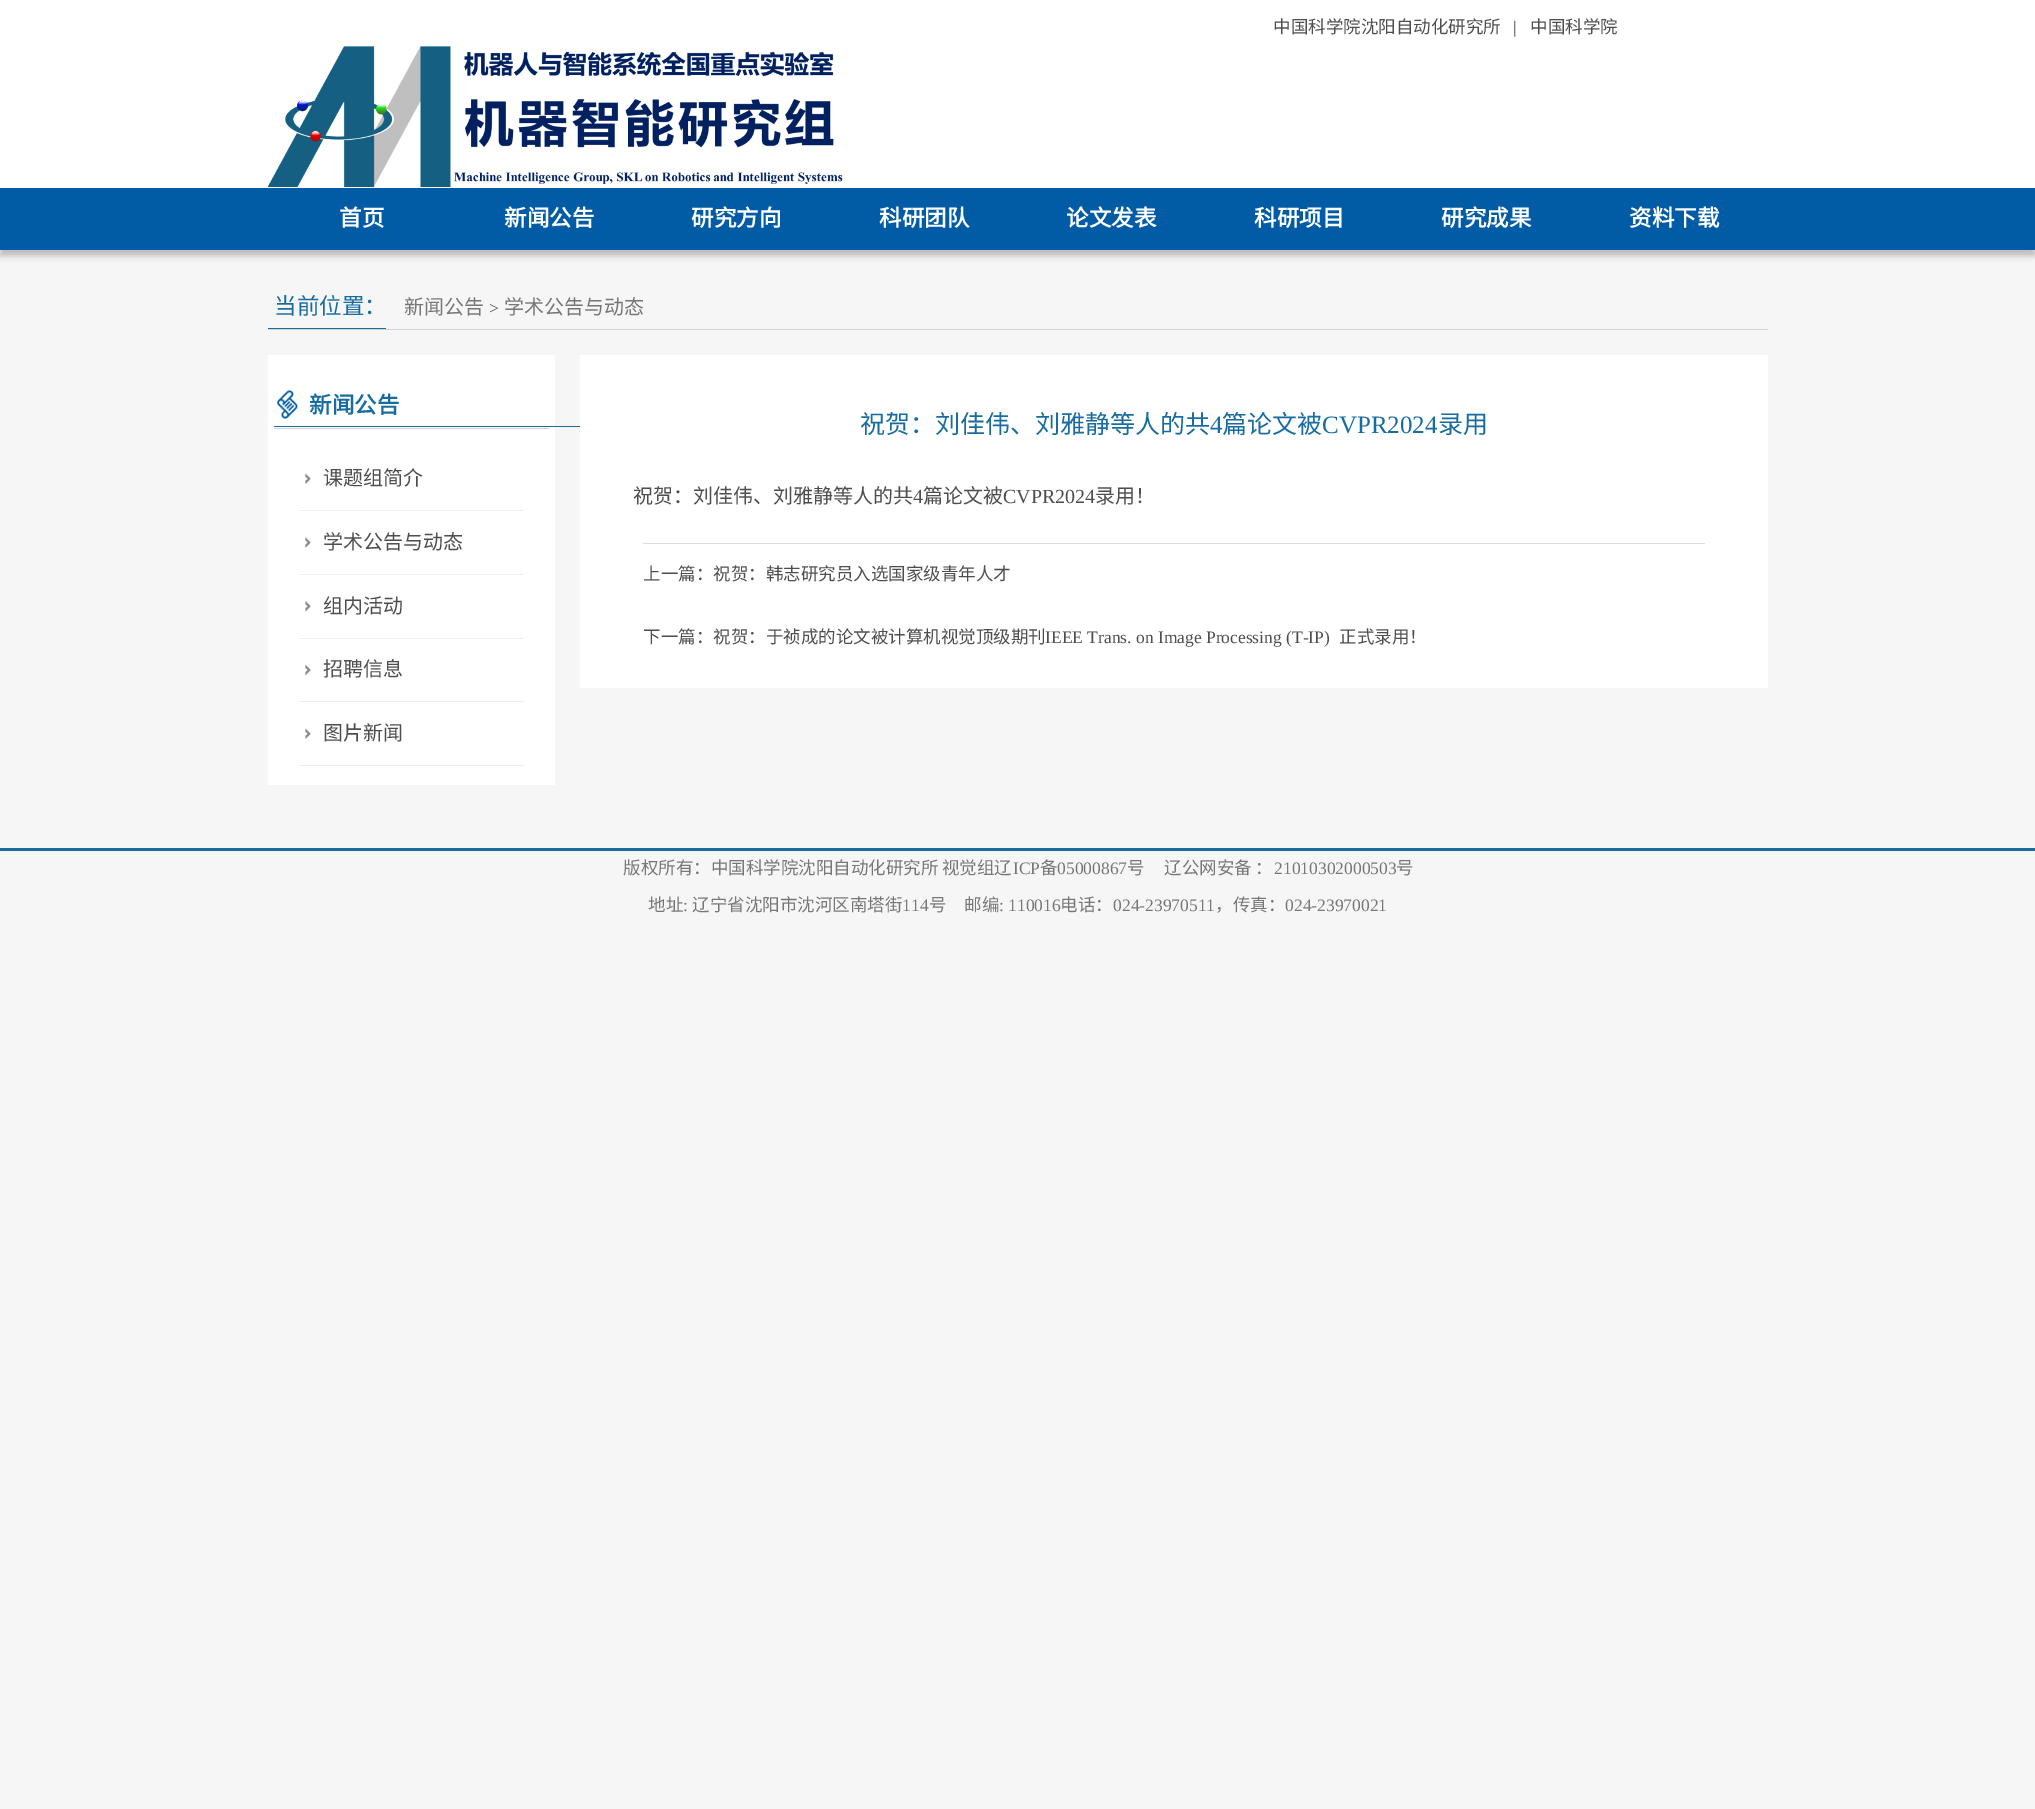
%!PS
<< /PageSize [2035 1809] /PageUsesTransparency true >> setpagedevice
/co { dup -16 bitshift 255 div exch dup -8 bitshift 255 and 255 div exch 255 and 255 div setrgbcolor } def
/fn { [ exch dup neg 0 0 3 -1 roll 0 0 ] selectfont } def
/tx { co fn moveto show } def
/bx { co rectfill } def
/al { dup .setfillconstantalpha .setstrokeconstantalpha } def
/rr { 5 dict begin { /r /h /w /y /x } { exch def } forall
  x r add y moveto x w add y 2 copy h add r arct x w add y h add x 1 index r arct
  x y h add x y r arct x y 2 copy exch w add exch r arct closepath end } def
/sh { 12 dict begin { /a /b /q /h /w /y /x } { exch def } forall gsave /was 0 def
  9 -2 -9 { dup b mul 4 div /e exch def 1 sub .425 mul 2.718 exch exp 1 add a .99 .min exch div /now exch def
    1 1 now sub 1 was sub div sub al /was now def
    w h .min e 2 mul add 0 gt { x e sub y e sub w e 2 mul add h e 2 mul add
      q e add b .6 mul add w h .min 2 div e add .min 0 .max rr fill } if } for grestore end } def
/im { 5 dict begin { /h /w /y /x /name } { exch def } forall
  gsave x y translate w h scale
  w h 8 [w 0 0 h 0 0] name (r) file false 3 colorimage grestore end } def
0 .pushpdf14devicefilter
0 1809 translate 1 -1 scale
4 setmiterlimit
0 0 2035 1809 16#F6F6F6 bx
0 0 2035 188 16#FFFFFF bx
(media/1.raw) 267 46 576 142 im
16#BBBBBB co
0 194 2035 62 0 3 1 sh
0 188 2035 62 16#015CA5 bx
268 329 1500 1 16#D2D2D2 bx
268 328 118 1 16#196CA0 bx
268 355 287 430 16#FFFFFF bx
274 428 275 1 16#D2D2D2 bx
274 426 306 1 16#196CA0 bx
(media/2.raw) 277 390 21 29 im
299 510 225 1 16#EEEEEE bx
(media/3.raw) 305 473 6 11 im
299 574 225 1 16#EEEEEE bx
(media/4.raw) 305 537 6 11 im
299 638 225 1 16#EEEEEE bx
(media/5.raw) 305 601 6 11 im
299 701 225 1 16#EEEEEE bx
(media/6.raw) 305 664 6 12 im
299 765 225 1 16#EEEEEE bx
(media/3.raw) 305 728 6 11 im
580 355 1188 333 16#FFFFFF bx
643 543 1062 1 16#DDDDDD bx
0 848 2035 3 16#196CA0 bx
(中国科学院沈阳自动化研究所) 1273 33 /NotoSansCJKSC-Regular 17.5 16#4E4E4E tx
(|) 1513 33 /LiberationSerif-Regular 17.5 16#4E4E4E tx
(中国科学院) 1530 33 /NotoSansCJKSC-Regular 17.5 16#4E4E4E tx
(首页) 339 226 /NotoSansCJKSC-Bold 22.5 16#FFFFFF tx
(新闻公告) 504 226 /NotoSansCJKSC-Bold 22.5 16#FFFFFF tx
(研究方向) 691 226 /NotoSansCJKSC-Bold 22.5 16#FFFFFF tx
(科研团队) 879 226 /NotoSansCJKSC-Bold 22.5 16#FFFFFF tx
(论文发表) 1066 226 /NotoSansCJKSC-Bold 22.5 16#FFFFFF tx
(科研项目) 1254 226 /NotoSansCJKSC-Bold 22.5 16#FFFFFF tx
(研究成果) 1441 226 /NotoSansCJKSC-Bold 22.5 16#FFFFFF tx
(资料下载) 1629 226 /NotoSansCJKSC-Bold 22.5 16#FFFFFF tx
(当前位置：) 274 314 /NotoSansCJKSC-Regular 22.5 16#196CA0 tx
(新闻公告) 404 314 /NotoSansCJKSC-Regular 20 16#777777 tx
(>) 489 314 /LiberationSerif-Regular 17.5 16#4E4E4E tx
(学术公告与动态) 504 314 /NotoSansCJKSC-Regular 20 16#777777 tx
(新闻公告) 309 413 /NotoSansCJKSC-Bold 22.5 16#196CA0 tx
(课题组简介) 323 485 /NotoSansCJKSC-Regular 20 16#4E4E4E tx
(学术公告与动态) 323 549 /NotoSansCJKSC-Regular 20 16#4E4E4E tx
(组内活动) 323 613 /NotoSansCJKSC-Regular 20 16#4E4E4E tx
(招聘信息) 323 676 /NotoSansCJKSC-Regular 20 16#4E4E4E tx
(图片新闻) 323 740 /NotoSansCJKSC-Regular 20 16#4E4E4E tx
(祝贺：刘佳伟、刘雅静等人的共) 860 433 /NotoSansCJKSC-Regular 25 16#196CA0 tx
(4) 1210 433 /LiberationSerif-Regular 25 16#196CA0 tx
(篇论文被) 1222 433 /NotoSansCJKSC-Regular 25 16#196CA0 tx
(CVPR2024) 1322 433 /LiberationSerif-Regular 25 16#196CA0 tx
(录用) 1438 433 /NotoSansCJKSC-Regular 25 16#196CA0 tx
(祝贺：刘佳伟、刘雅静等人的共) 633 503 /NotoSansCJKSC-Regular 20 16#4E4E4E tx
(4) 913 503 /LiberationSerif-Regular 20 16#4E4E4E tx
(篇论文被) 923 503 /NotoSansCJKSC-Regular 20 16#4E4E4E tx
(CVPR2024) 1003 503 /LiberationSerif-Regular 20 16#4E4E4E tx
(录用！) 1095 503 /NotoSansCJKSC-Regular 20 16#4E4E4E tx
(上一篇：) 643 580 /NotoSansCJKSC-Regular 17.5 16#4E4E4E tx
(祝贺：韩志研究员入选国家级青年人才) 713 580 /NotoSansCJKSC-Regular 17.5 16#4E4E4E tx
(下一篇：) 643 643 /NotoSansCJKSC-Regular 17.5 16#4E4E4E tx
(祝贺：于祯成的论文被计算机视觉顶级期刊) 713 643 /NotoSansCJKSC-Regular 17.5 16#4E4E4E tx
(IEEE Trans. on Image Processing \(T-IP\)) 1045 643 /LiberationSerif-Regular 17.5 16#4E4E4E tx
(正式录用！) 1339 643 /NotoSansCJKSC-Regular 17.5 16#4E4E4E tx
(版权所有：中国科学院沈阳自动化研究所 视觉组辽) 623 874 /NotoSansCJKSC-Regular 17.5 16#777777 tx
(ICP) 1013 874 /LiberationSerif-Regular 17.5 16#777777 tx
(备) 1040 874 /NotoSansCJKSC-Regular 17.5 16#777777 tx
(05000867) 1057 874 /LiberationSerif-Regular 17.5 16#777777 tx
(号) 1127 874 /NotoSansCJKSC-Regular 17.5 16#777777 tx
(辽公网安备 ：) 1164 874 /NotoSansCJKSC-Regular 17.5 16#777777 tx
(21010302000503) 1274 874 /LiberationSerif-Regular 17.5 16#777777 tx
(号) 1396 874 /NotoSansCJKSC-Regular 17.5 16#777777 tx
(地址) 648 911 /NotoSansCJKSC-Regular 17.5 16#777777 tx
(:) 683 911 /LiberationSerif-Regular 17.5 16#777777 tx
(辽宁省沈阳市沈河区南塔街) 692 911 /NotoSansCJKSC-Regular 17.5 16#777777 tx
(114) 902 911 /LiberationSerif-Regular 17.5 16#777777 tx
(号) 929 911 /NotoSansCJKSC-Regular 17.5 16#777777 tx
(邮编) 964 911 /NotoSansCJKSC-Regular 17.5 16#777777 tx
(: 110016) 999 911 /LiberationSerif-Regular 17.5 16#777777 tx
(电话：) 1060 911 /NotoSansCJKSC-Regular 17.5 16#777777 tx
(024-23970511) 1113 911 /LiberationSerif-Regular 17.5 16#777777 tx
(，传真：) 1215 911 /NotoSansCJKSC-Regular 17.5 16#777777 tx
(024-23970021) 1285 911 /LiberationSerif-Regular 17.5 16#777777 tx
.poppdf14devicefilter showpage
